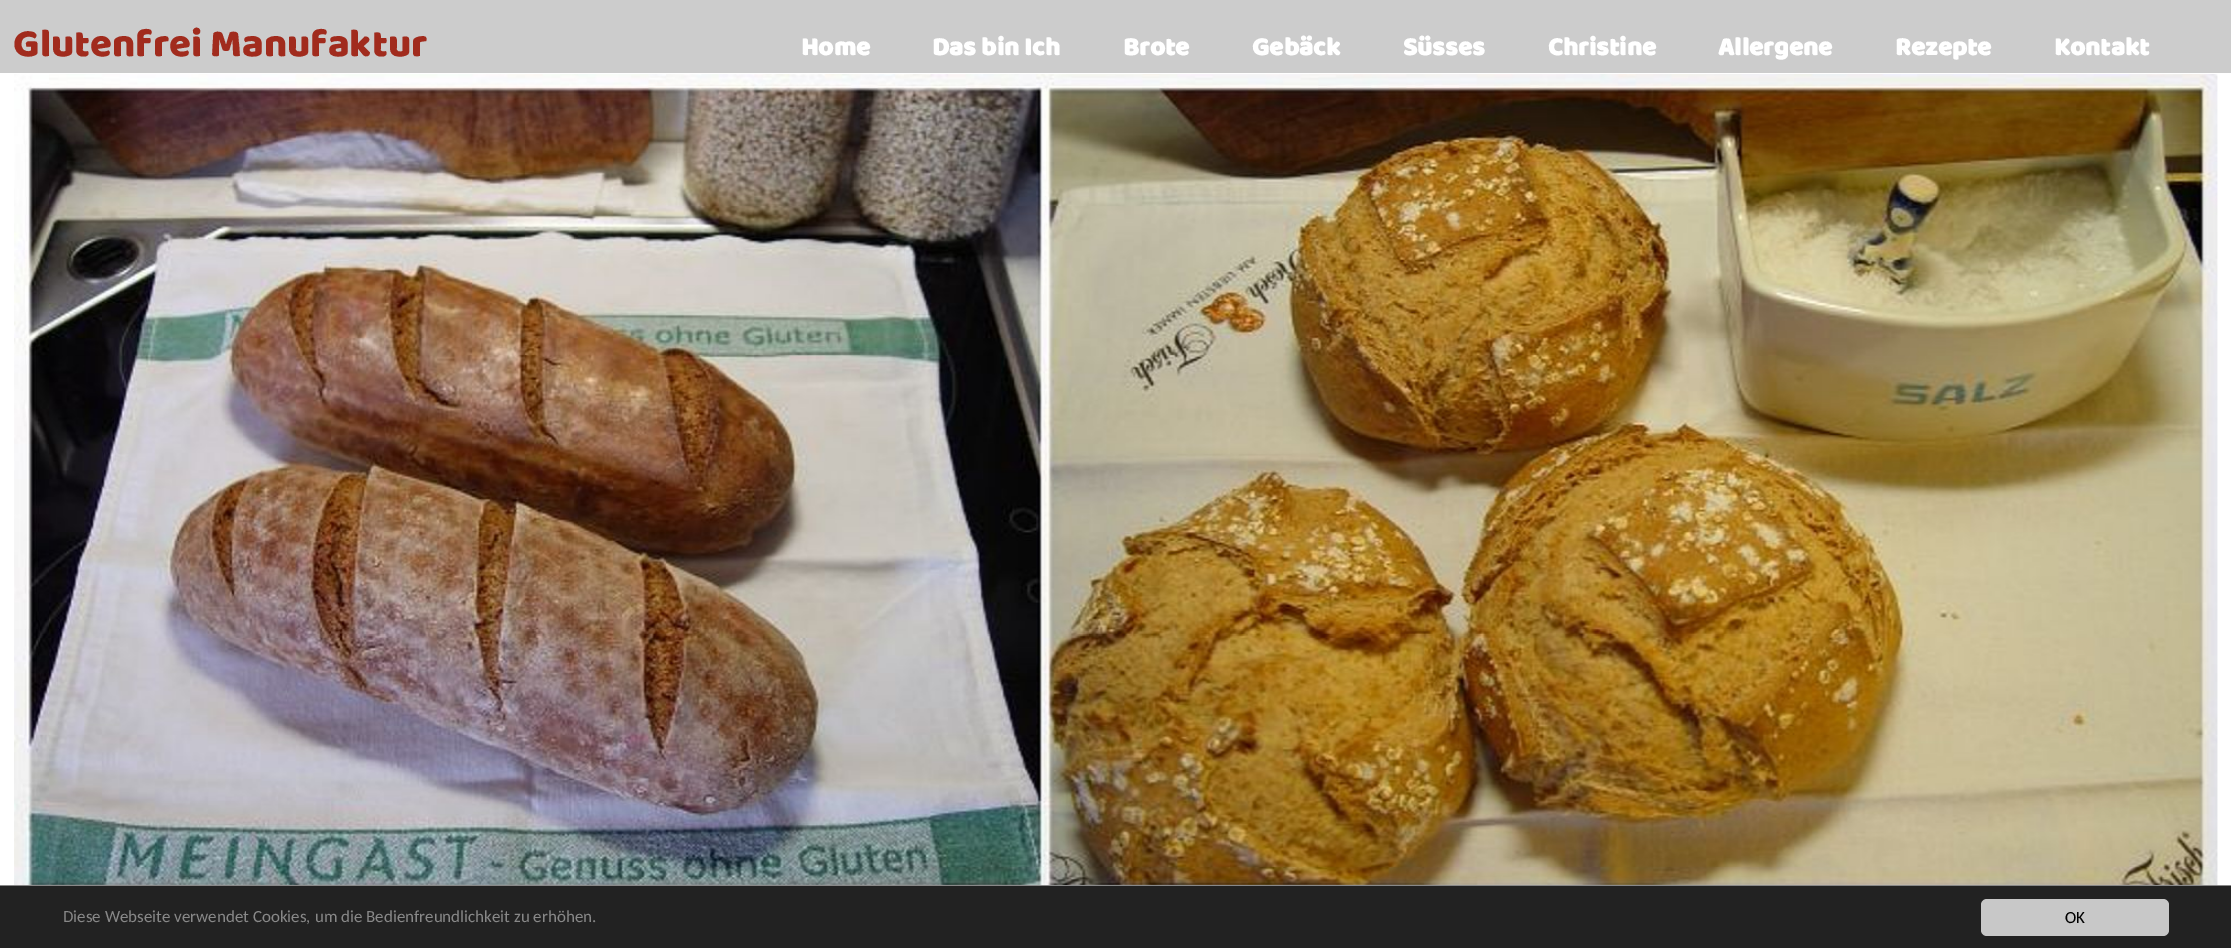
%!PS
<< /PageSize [2231 948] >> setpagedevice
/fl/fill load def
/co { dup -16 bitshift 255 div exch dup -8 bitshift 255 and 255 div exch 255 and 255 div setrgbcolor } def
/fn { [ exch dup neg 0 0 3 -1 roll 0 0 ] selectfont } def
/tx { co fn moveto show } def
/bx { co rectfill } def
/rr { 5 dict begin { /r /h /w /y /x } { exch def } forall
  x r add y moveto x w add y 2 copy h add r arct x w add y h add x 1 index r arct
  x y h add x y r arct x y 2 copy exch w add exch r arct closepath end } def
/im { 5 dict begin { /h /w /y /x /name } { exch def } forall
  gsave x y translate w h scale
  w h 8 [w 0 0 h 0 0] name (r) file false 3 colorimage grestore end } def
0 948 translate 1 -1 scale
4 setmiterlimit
0 0 2231 948 16#FFFFFF bx
0 0 2231 73 16#CCCCCC bx
(media/1.raw) 14 74 2204 811 im
0 886 2231 62 16#222222 bx
0 885 2231 1 16#888888 bx
16#C8C8C8 co
1981 899 188 37 6 rr fl
(Glutenfrei Manufaktur) 13 56 /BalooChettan-Regular 40 16#A12B1D tx
(Home) 801 55 /BalooChettan-Bold 26 16#FFFFFF tx
(Das bin Ich) 932 55 /BalooChettan-Bold 26 16#FFFFFF tx
(Brote) 1123 55 /BalooChettan-Bold 26 16#FFFFFF tx
(Gebäck) 1252 55 /BalooChettan-Bold 26 16#FFFFFF tx
(Süsses) 1403 55 /BalooChettan-Bold 26 16#FFFFFF tx
(Christine) 1548 55 /BalooChettan-Bold 26 16#FFFFFF tx
(Allergene) 1718 55 /BalooChettan-Bold 26 16#FFFFFF tx
(Rezepte) 1895 55 /BalooChettan-Bold 26 16#FFFFFF tx
(Kontakt) 2054 55 /BalooChettan-Bold 26 16#FFFFFF tx
(Diese Webseite verwendet Cookies, um die Bedienfreundlichkeit zu erhöhen.) 63 922 /Carlito-Regular 17 16#888888 tx
(OK) 2065 923 /Carlito-Regular 17 16#000000 tx
showpage
